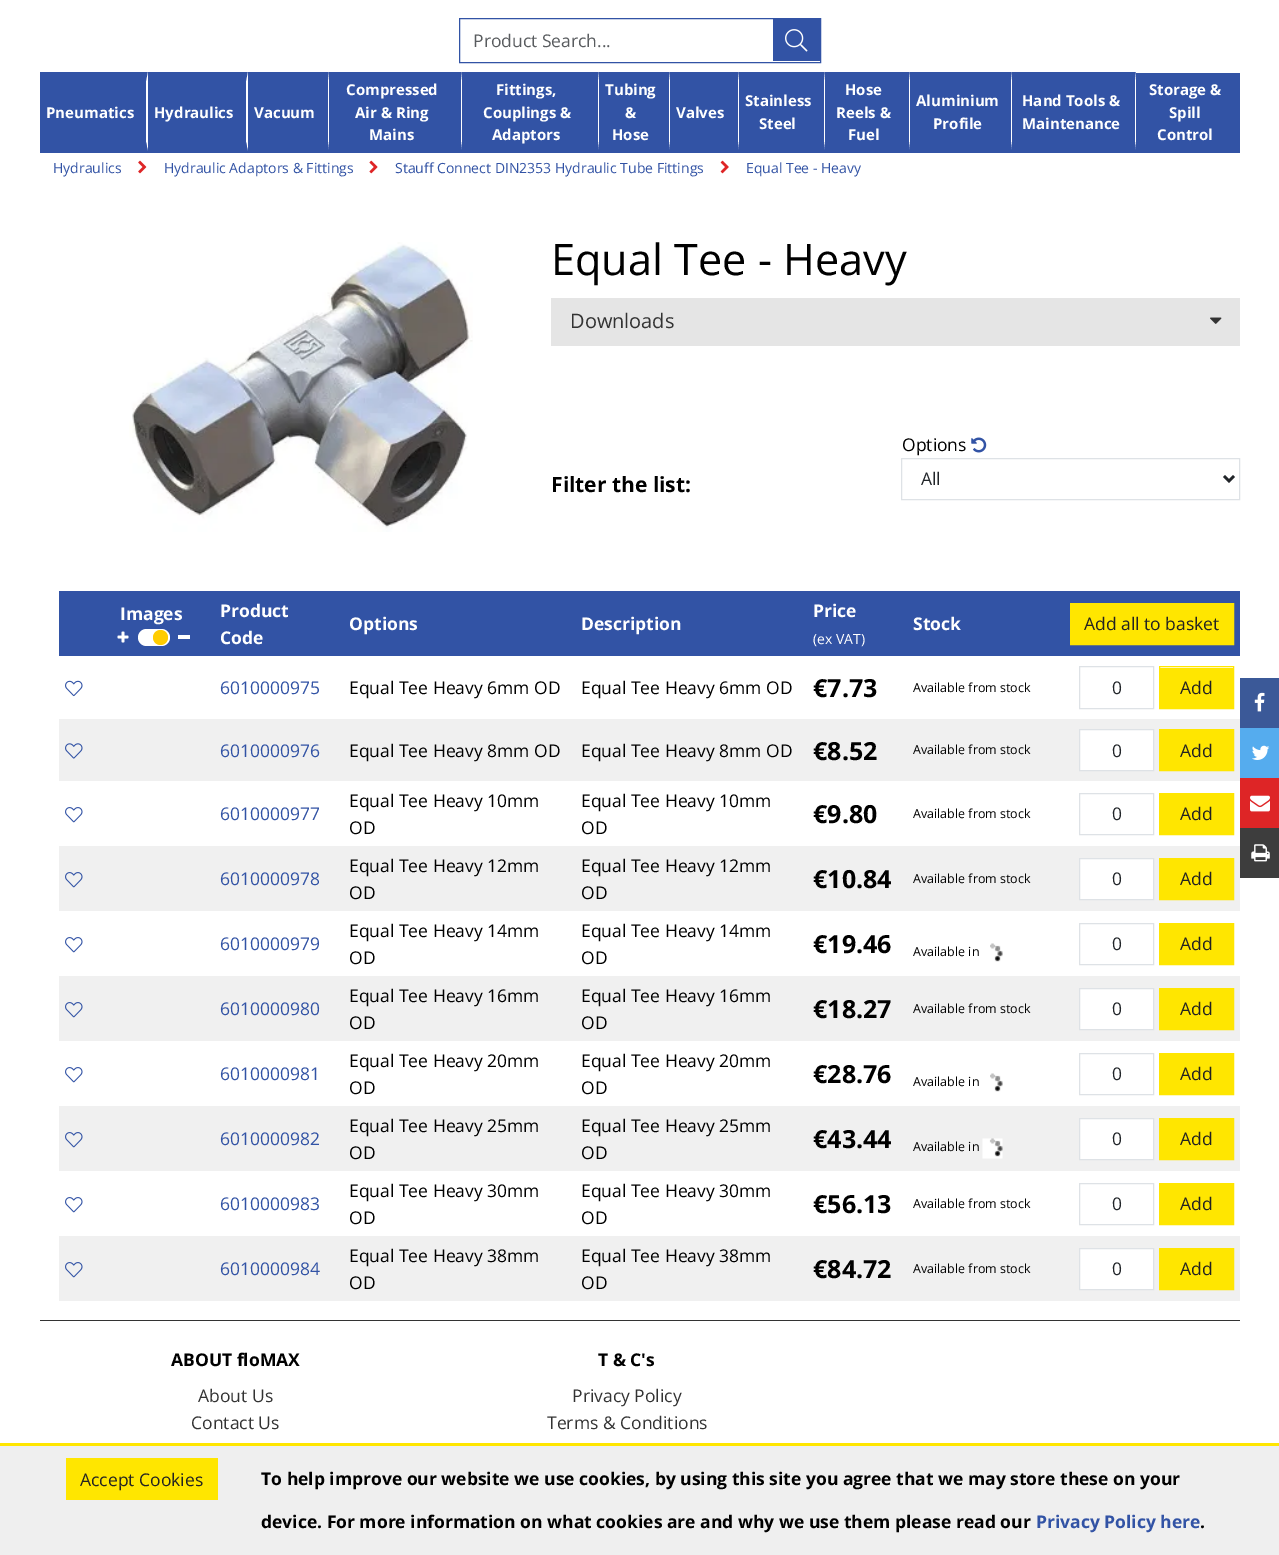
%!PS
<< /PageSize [1279 1555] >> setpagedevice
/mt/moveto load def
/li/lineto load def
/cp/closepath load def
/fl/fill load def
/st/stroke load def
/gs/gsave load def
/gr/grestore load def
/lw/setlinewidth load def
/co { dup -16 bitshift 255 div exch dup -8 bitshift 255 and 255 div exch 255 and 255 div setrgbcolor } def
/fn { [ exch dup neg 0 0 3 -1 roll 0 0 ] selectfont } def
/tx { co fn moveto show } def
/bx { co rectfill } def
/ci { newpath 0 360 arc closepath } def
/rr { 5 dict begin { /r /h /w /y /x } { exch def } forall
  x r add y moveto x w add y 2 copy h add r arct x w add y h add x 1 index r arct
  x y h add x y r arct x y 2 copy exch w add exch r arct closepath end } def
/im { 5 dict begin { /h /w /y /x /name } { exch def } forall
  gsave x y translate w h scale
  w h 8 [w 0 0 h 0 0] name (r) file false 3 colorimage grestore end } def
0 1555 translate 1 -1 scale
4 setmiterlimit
0 0 1279 1555 16#FFFFFF bx
16#3253A5 co
459.5 18.5 361 44 rectstroke
773 19 47 42 16#3253A5 bx
(media/1.raw) 785 29 23 23 im
40 73 1200 80 16#3253A5 bx
40 72 mt 148 72 li 146 82 li 40 82 li cp fl
16#FFFFFF co
148 72 mt 148 152 li 146 142 li 146 82 li cp fl
16#3253A5 co
148 152 mt 40 152 li 40 142 li 146 142 li cp fl
148 72 mt 248 72 li 246 82 li 148 82 li cp fl
16#FFFFFF co
248 72 mt 248 152 li 246 142 li 246 82 li cp fl
16#3253A5 co
248 152 mt 148 152 li 148 142 li 246 142 li cp fl
248 72 mt 329 72 li 328 82 li 248 82 li cp fl
16#FFFFFF co
329 72 mt 329 152 li 328 142 li 328 82 li cp fl
16#3253A5 co
329 152 mt 248 152 li 248 142 li 328 142 li cp fl
329 72 mt 462 72 li 461 82 li 329 82 li cp fl
16#FFFFFF co
462 72 mt 462 152 li 461 142 li 461 82 li cp fl
16#3253A5 co
462 152 mt 329 152 li 329 142 li 461 142 li cp fl
462 72 mt 599 72 li 598 82 li 462 82 li cp fl
16#FFFFFF co
599 72 mt 599 152 li 598 142 li 598 82 li cp fl
16#3253A5 co
599 152 mt 462 152 li 462 142 li 598 142 li cp fl
599 72 mt 670 72 li 669 82 li 599 82 li cp fl
16#FFFFFF co
670 72 mt 670 152 li 669 142 li 669 82 li cp fl
16#3253A5 co
670 152 mt 599 152 li 599 142 li 669 142 li cp fl
670 72 mt 739 72 li 738 82 li 670 82 li cp fl
16#FFFFFF co
739 72 mt 739 152 li 738 142 li 738 82 li cp fl
16#3253A5 co
739 152 mt 670 152 li 670 142 li 738 142 li cp fl
739 72 mt 825 72 li 824 82 li 739 82 li cp fl
16#FFFFFF co
825 72 mt 825 152 li 824 142 li 824 82 li cp fl
16#3253A5 co
825 152 mt 739 152 li 739 142 li 824 142 li cp fl
825 72 mt 910 72 li 909 82 li 825 82 li cp fl
16#FFFFFF co
910 72 mt 910 152 li 909 142 li 909 82 li cp fl
16#3253A5 co
910 152 mt 825 152 li 825 142 li 909 142 li cp fl
910 72 mt 1012 72 li 1011 82 li 910 82 li cp fl
16#FFFFFF co
1012 72 mt 1012 152 li 1011 142 li 1011 82 li cp fl
16#3253A5 co
1012 152 mt 910 152 li 910 142 li 1011 142 li cp fl
1012 72 mt 1136 72 li 1135 82 li 1012 82 li cp fl
16#FFFFFF co
1136 72 mt 1136 152 li 1135 142 li 1135 82 li cp fl
16#3253A5 co
1136 152 mt 1012 152 li 1012 142 li 1135 142 li cp fl
(media/2.raw) 138 160 9 14 im
(media/3.raw) 369 160 9 14 im
(media/4.raw) 720 160 9 14 im
(media/5.raw) 129 242 344 290 im
551 298 689 48 16#E5E5E5 bx
(media/6.raw) 1210 317 12 7 im
(media/7.raw) 971 437 16 16 im
16#DEE2E6 co
901.5 458.5 338 41 rectstroke
16#212529 co
2.5 lw
1224 476 mt 1229 481 li 1234 476 li st
59 591 1181 65 16#3253A5 bx
(media/8.raw) 117 631 12 12 im
16#FFFFFF co
138 629 32 17 8.5 rr fl
16#FFCC00 co
160.5 637.5 7.5 ci fl
178 635 12 4 16#FFFFFF bx
16#FFE600 co
1070.5 603.5 mt 1233.5 603.5 li 1233.5 644.5 li 1070.5 644.5 li cp gs fl gr
1 lw
st
(media/9.raw) 65 680 18 17 im
16#DEE2E6 co
1079.5 666.5 74 42 rectstroke
1160 668 73 40 16#FFE600 bx
1159.5 666.5 74 42 rectstroke
59 719 1181 62 16#F0F0F0 bx
(media/10.raw) 65 743 18 16 im
16#FFFFFF co
1079.5 729.5 mt 1153.5 729.5 li 1153.5 770.5 li 1079.5 770.5 li cp gs fl gr
16#DEE2E6 co
st
16#FFE600 co
1159.5 729.5 mt 1233.5 729.5 li 1233.5 770.5 li 1159.5 770.5 li cp gs fl gr
st
(media/11.raw) 65 807 18 16 im
16#DEE2E6 co
1079.5 793.5 74 41 rectstroke
16#FFE600 co
1159.5 793.5 mt 1233.5 793.5 li 1233.5 834.5 li 1159.5 834.5 li cp gs fl gr
st
59 846 1181 65 16#F0F0F0 bx
(media/12.raw) 65 872 18 16 im
16#FFFFFF co
1079.5 858.5 mt 1153.5 858.5 li 1153.5 899.5 li 1079.5 899.5 li cp gs fl gr
16#DEE2E6 co
st
16#FFE600 co
1159.5 858.5 mt 1233.5 858.5 li 1233.5 899.5 li 1159.5 899.5 li cp gs fl gr
st
(media/11.raw) 65 937 18 16 im
(media/13.raw) 990 943 13 19 im
16#DEE2E6 co
1079.5 923.5 74 41 rectstroke
16#FFE600 co
1159.5 923.5 mt 1233.5 923.5 li 1233.5 964.5 li 1159.5 964.5 li cp gs fl gr
st
59 976 1181 65 16#F0F0F0 bx
(media/12.raw) 65 1002 18 16 im
16#FFFFFF co
1079.5 988.5 mt 1153.5 988.5 li 1153.5 1029.5 li 1079.5 1029.5 li cp gs fl gr
16#DEE2E6 co
st
16#FFE600 co
1159.5 988.5 mt 1233.5 988.5 li 1233.5 1029.5 li 1159.5 1029.5 li cp gs fl gr
st
(media/11.raw) 65 1067 18 16 im
(media/13.raw) 990 1073 13 19 im
16#DEE2E6 co
1079.5 1053.5 74 41 rectstroke
16#FFE600 co
1159.5 1053.5 mt 1233.5 1053.5 li 1233.5 1094.5 li 1159.5 1094.5 li cp gs fl gr
st
59 1106 1181 65 16#F0F0F0 bx
(media/12.raw) 65 1132 18 16 im
(media/14.raw) 982 1138 21 21 im
16#FFFFFF co
1079.5 1118.5 mt 1153.5 1118.5 li 1153.5 1159.5 li 1079.5 1159.5 li cp gs fl gr
16#DEE2E6 co
st
16#FFE600 co
1159.5 1118.5 mt 1233.5 1118.5 li 1233.5 1159.5 li 1159.5 1159.5 li cp gs fl gr
st
(media/11.raw) 65 1197 18 16 im
16#DEE2E6 co
1079.5 1183.5 74 41 rectstroke
16#FFE600 co
1159.5 1183.5 mt 1233.5 1183.5 li 1233.5 1224.5 li 1159.5 1224.5 li cp gs fl gr
st
59 1236 1181 65 16#F0F0F0 bx
(media/12.raw) 65 1262 18 16 im
16#FFFFFF co
1079.5 1248.5 mt 1153.5 1248.5 li 1153.5 1289.5 li 1079.5 1289.5 li cp gs fl gr
16#DEE2E6 co
st
16#FFE600 co
1159.5 1248.5 mt 1233.5 1248.5 li 1233.5 1289.5 li 1159.5 1289.5 li cp gs fl gr
st
1240 678 39 50 16#3B5998 bx
(media/15.raw) 1254 692 11 20 im
1240 728 39 50 16#55ACEE bx
(media/16.raw) 1252 745 18 15 im
1240 778 39 50 16#DE2526 bx
(media/17.raw) 1250 795 20 17 im
1240 828 39 50 16#3D3D3D bx
(media/18.raw) 1251 844 19 18 im
40 1320 1200 1 16#333333 bx
0 1446 1279 109 16#EFEFEF bx
0 1443 1279 3 16#FFE600 bx
66 1458 152 42 16#FFE600 bx
(Product Search...) 473 47 /OpenSans-Regular 17.5 16#595C5F tx
(Pneumatics) 46 118 /OpenSans-Bold 15 16#FFFFFF tx
(Hydraulics) 154 118 /OpenSans-Bold 15 16#FFFFFF tx
(Vacuum) 254 118 /OpenSans-Bold 15 16#FFFFFF tx
(Compressed) 346 95 /OpenSans-Bold 15 16#FFFFFF tx
(Air & Ring) 355 118 /OpenSans-Bold 15 16#FFFFFF tx
(Mains) 369 140 /OpenSans-Bold 15 16#FFFFFF tx
(Fittings,) 496 95 /OpenSans-Bold 15 16#FFFFFF tx
(Couplings &) 483 118 /OpenSans-Bold 15 16#FFFFFF tx
(Adaptors) 492 140 /OpenSans-Bold 15 16#FFFFFF tx
(Tubing) 605 95 /OpenSans-Bold 15 16#FFFFFF tx
(&) 625 118 /OpenSans-Bold 15 16#FFFFFF tx
(Hose) 612 140 /OpenSans-Bold 15 16#FFFFFF tx
(Valves) 676 118 /OpenSans-Bold 15 16#FFFFFF tx
(Stainless) 745 106 /OpenSans-Bold 15 16#FFFFFF tx
(Steel) 759 129 /OpenSans-Bold 15 16#FFFFFF tx
(Hose) 845 95 /OpenSans-Bold 15 16#FFFFFF tx
(Reels &) 836 118 /OpenSans-Bold 15 16#FFFFFF tx
(Fuel) 848 140 /OpenSans-Bold 15 16#FFFFFF tx
(Aluminium) 916 106 /OpenSans-Bold 15 16#FFFFFF tx
(Profile) 933 129 /OpenSans-Bold 15 16#FFFFFF tx
(Hand Tools &) 1022 106 /OpenSans-Bold 15 16#FFFFFF tx
(Maintenance) 1022 129 /OpenSans-Bold 15 16#FFFFFF tx
(Storage &) 1149 95 /OpenSans-Bold 15 16#FFFFFF tx
(Spill) 1169 118 /OpenSans-Bold 15 16#FFFFFF tx
(Control) 1157 140 /OpenSans-Bold 15 16#FFFFFF tx
(Hydraulics) 53 173 /OpenSans-Regular 14 16#3253A5 tx
(Hydraulic Adaptors & Fittings) 164 173 /OpenSans-Regular 14 16#3253A5 tx
(Stauff Connect DIN2353 Hydraulic Tube Fittings) 395 173 /OpenSans-Regular 14 16#3253A5 tx
(Equal Tee - Heavy) 746 173 /OpenSans-Regular 14 16#3253A5 tx
(Equal Tee - Heavy) 551 275 /OpenSans-Regular 43.25 16#000000 tx
(Downloads) 570 328 /OpenSans-Regular 20 16#333333 tx
(Filter the list:) 551 492 /OpenSans-Bold 21 16#000000 tx
(Options) 902 451 /OpenSans-Regular 17.5 16#000000 tx
(All) 921 485 /OpenSans-Regular 17.5 16#212529 tx
(Images) 120 620 /OpenSans-Bold 17.5 16#FFFFFF tx
(Product) 220 617 /OpenSans-Bold 17.5 16#FFFFFF tx
(Code) 220 644 /OpenSans-Bold 17.5 16#FFFFFF tx
(Options) 349 630 /OpenSans-Bold 17.5 16#FFFFFF tx
(Description) 581 630 /OpenSans-Bold 17.5 16#FFFFFF tx
(Price) 813 617 /OpenSans-Bold 17.5 16#FFFFFF tx
(\(ex VAT\)) 813 644 /OpenSans-Regular 14 16#FFFFFF tx
(Stock) 913 630 /OpenSans-Bold 17.5 16#FFFFFF tx
(Add all to basket) 1084 630 /OpenSans-Regular 17.5 16#222222 tx
(6010000975) 220 694 /OpenSans-Regular 17.5 16#3253A5 tx
(Equal Tee Heavy 6mm OD) 349 694 /OpenSans-Regular 17.5 16#000000 tx
(Equal Tee Heavy 6mm OD) 581 694 /OpenSans-Regular 17.5 16#000000 tx
(€7.73) 813 697 /OpenSans-Bold 25 16#000000 tx
(Available from stock) 913 692 /OpenSans-Regular 12.5 16#000000 tx
(0) 1112 694 /OpenSans-Regular 17.5 16#212529 tx
(Add) 1180 694 /OpenSans-Regular 17.5 16#222222 tx
(6010000976) 220 757 /OpenSans-Regular 17.5 16#3253A5 tx
(Equal Tee Heavy 8mm OD) 349 757 /OpenSans-Regular 17.5 16#000000 tx
(Equal Tee Heavy 8mm OD) 581 757 /OpenSans-Regular 17.5 16#000000 tx
(€8.52) 813 760 /OpenSans-Bold 25 16#000000 tx
(Available from stock) 913 754 /OpenSans-Regular 12.5 16#000000 tx
(0) 1112 757 /OpenSans-Regular 17.5 16#212529 tx
(Add) 1180 757 /OpenSans-Regular 17.5 16#222222 tx
(6010000977) 220 820 /OpenSans-Regular 17.5 16#3253A5 tx
(Equal Tee Heavy 10mm) 349 807 /OpenSans-Regular 17.5 16#000000 tx
(OD) 349 834 /OpenSans-Regular 17.5 16#000000 tx
(Equal Tee Heavy 10mm) 581 807 /OpenSans-Regular 17.5 16#000000 tx
(OD) 581 834 /OpenSans-Regular 17.5 16#000000 tx
(€9.80) 813 823 /OpenSans-Bold 25 16#000000 tx
(Available from stock) 913 818 /OpenSans-Regular 12.5 16#000000 tx
(0) 1112 820 /OpenSans-Regular 17.5 16#212529 tx
(Add) 1180 820 /OpenSans-Regular 17.5 16#222222 tx
(6010000978) 220 885 /OpenSans-Regular 17.5 16#3253A5 tx
(Equal Tee Heavy 12mm) 349 872 /OpenSans-Regular 17.5 16#000000 tx
(OD) 349 899 /OpenSans-Regular 17.5 16#000000 tx
(Equal Tee Heavy 12mm) 581 872 /OpenSans-Regular 17.5 16#000000 tx
(OD) 581 899 /OpenSans-Regular 17.5 16#000000 tx
(€10.84) 813 888 /OpenSans-Bold 25 16#000000 tx
(Available from stock) 913 883 /OpenSans-Regular 12.5 16#000000 tx
(0) 1112 885 /OpenSans-Regular 17.5 16#212529 tx
(Add) 1180 885 /OpenSans-Regular 17.5 16#222222 tx
(6010000979) 220 950 /OpenSans-Regular 17.5 16#3253A5 tx
(Equal Tee Heavy 14mm) 349 937 /OpenSans-Regular 17.5 16#000000 tx
(OD) 349 964 /OpenSans-Regular 17.5 16#000000 tx
(Equal Tee Heavy 14mm) 581 937 /OpenSans-Regular 17.5 16#000000 tx
(OD) 581 964 /OpenSans-Regular 17.5 16#000000 tx
(€19.46) 813 953 /OpenSans-Bold 25 16#000000 tx
(Available in) 913 956 /OpenSans-Regular 12.5 16#000000 tx
(0) 1112 950 /OpenSans-Regular 17.5 16#212529 tx
(Add) 1180 950 /OpenSans-Regular 17.5 16#222222 tx
(6010000980) 220 1015 /OpenSans-Regular 17.5 16#3253A5 tx
(Equal Tee Heavy 16mm) 349 1002 /OpenSans-Regular 17.5 16#000000 tx
(OD) 349 1029 /OpenSans-Regular 17.5 16#000000 tx
(Equal Tee Heavy 16mm) 581 1002 /OpenSans-Regular 17.5 16#000000 tx
(OD) 581 1029 /OpenSans-Regular 17.5 16#000000 tx
(€18.27) 813 1018 /OpenSans-Bold 25 16#000000 tx
(Available from stock) 913 1013 /OpenSans-Regular 12.5 16#000000 tx
(0) 1112 1015 /OpenSans-Regular 17.5 16#212529 tx
(Add) 1180 1015 /OpenSans-Regular 17.5 16#222222 tx
(6010000981) 220 1080 /OpenSans-Regular 17.5 16#3253A5 tx
(Equal Tee Heavy 20mm) 349 1067 /OpenSans-Regular 17.5 16#000000 tx
(OD) 349 1094 /OpenSans-Regular 17.5 16#000000 tx
(Equal Tee Heavy 20mm) 581 1067 /OpenSans-Regular 17.5 16#000000 tx
(OD) 581 1094 /OpenSans-Regular 17.5 16#000000 tx
(€28.76) 813 1083 /OpenSans-Bold 25 16#000000 tx
(Available in) 913 1086 /OpenSans-Regular 12.5 16#000000 tx
(0) 1112 1080 /OpenSans-Regular 17.5 16#212529 tx
(Add) 1180 1080 /OpenSans-Regular 17.5 16#222222 tx
(6010000982) 220 1145 /OpenSans-Regular 17.5 16#3253A5 tx
(Equal Tee Heavy 25mm) 349 1132 /OpenSans-Regular 17.5 16#000000 tx
(OD) 349 1159 /OpenSans-Regular 17.5 16#000000 tx
(Equal Tee Heavy 25mm) 581 1132 /OpenSans-Regular 17.5 16#000000 tx
(OD) 581 1159 /OpenSans-Regular 17.5 16#000000 tx
(€43.44) 813 1148 /OpenSans-Bold 25 16#000000 tx
(Available in) 913 1151 /OpenSans-Regular 12.5 16#000000 tx
(0) 1112 1145 /OpenSans-Regular 17.5 16#212529 tx
(Add) 1180 1145 /OpenSans-Regular 17.5 16#222222 tx
(6010000983) 220 1210 /OpenSans-Regular 17.5 16#3253A5 tx
(Equal Tee Heavy 30mm) 349 1197 /OpenSans-Regular 17.5 16#000000 tx
(OD) 349 1224 /OpenSans-Regular 17.5 16#000000 tx
(Equal Tee Heavy 30mm) 581 1197 /OpenSans-Regular 17.5 16#000000 tx
(OD) 581 1224 /OpenSans-Regular 17.5 16#000000 tx
(€56.13) 813 1213 /OpenSans-Bold 25 16#000000 tx
(Available from stock) 913 1208 /OpenSans-Regular 12.5 16#000000 tx
(0) 1112 1210 /OpenSans-Regular 17.5 16#212529 tx
(Add) 1180 1210 /OpenSans-Regular 17.5 16#222222 tx
(6010000984) 220 1275 /OpenSans-Regular 17.5 16#3253A5 tx
(Equal Tee Heavy 38mm) 349 1262 /OpenSans-Regular 17.5 16#000000 tx
(OD) 349 1289 /OpenSans-Regular 17.5 16#000000 tx
(Equal Tee Heavy 38mm) 581 1262 /OpenSans-Regular 17.5 16#000000 tx
(OD) 581 1289 /OpenSans-Regular 17.5 16#000000 tx
(€84.72) 813 1278 /OpenSans-Bold 25 16#000000 tx
(Available from stock) 913 1273 /OpenSans-Regular 12.5 16#000000 tx
(0) 1112 1275 /OpenSans-Regular 17.5 16#212529 tx
(Add) 1180 1275 /OpenSans-Regular 17.5 16#222222 tx
(ABOUT floMAX) 171 1366 /OpenSans-Bold 17.5 16#000000 tx
(About Us) 198 1402 /OpenSans-Regular 17.5 16#333333 tx
(Contact Us) 191 1429 /OpenSans-Regular 17.5 16#333333 tx
(T & C's) 598 1366 /OpenSans-Bold 17.5 16#000000 tx
(Privacy Policy) 572 1402 /OpenSans-Regular 17.5 16#333333 tx
(Terms & Conditions) 547 1429 /OpenSans-Regular 17.5 16#333333 tx
(Accept Cookies) 80 1486 /OpenSans-Regular 17.5 16#222222 tx
(To help improve our website we use cookies, by using this site you agree that we may store these on your) 261 1485 /OpenSans-Bold 17.5 16#000000 tx
(device. For more information on what cookies are and why we use them please read our) 261 1528 /OpenSans-Bold 17.5 16#000000 tx
(Privacy Policy here) 1036 1528 /OpenSans-Bold 17.5 16#3253A5 tx
(.) 1200 1528 /OpenSans-Bold 17.5 16#000000 tx
showpage
